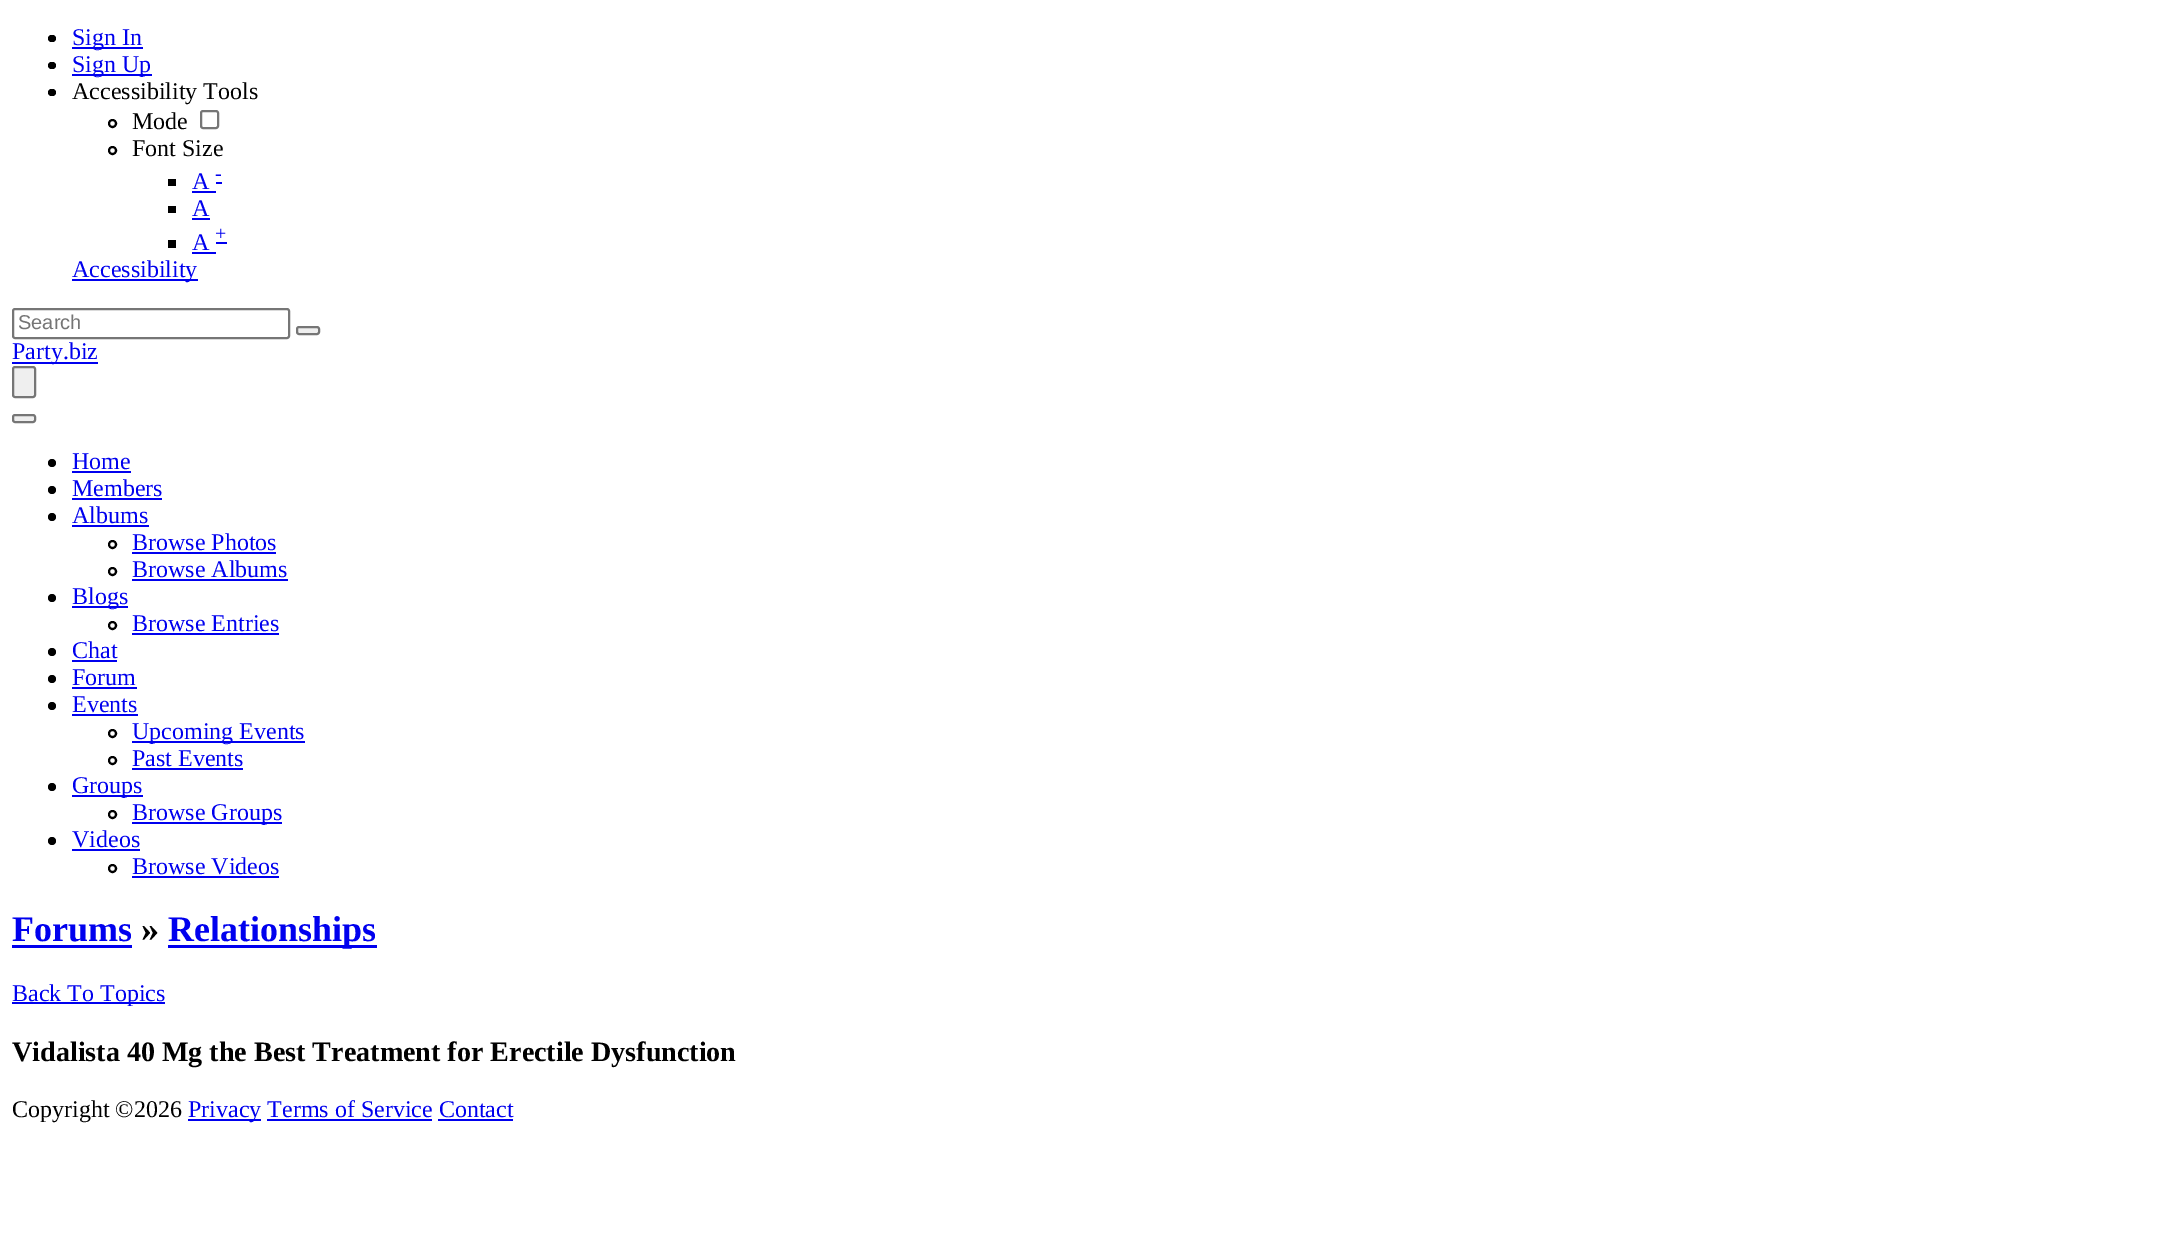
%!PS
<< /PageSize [2168 1244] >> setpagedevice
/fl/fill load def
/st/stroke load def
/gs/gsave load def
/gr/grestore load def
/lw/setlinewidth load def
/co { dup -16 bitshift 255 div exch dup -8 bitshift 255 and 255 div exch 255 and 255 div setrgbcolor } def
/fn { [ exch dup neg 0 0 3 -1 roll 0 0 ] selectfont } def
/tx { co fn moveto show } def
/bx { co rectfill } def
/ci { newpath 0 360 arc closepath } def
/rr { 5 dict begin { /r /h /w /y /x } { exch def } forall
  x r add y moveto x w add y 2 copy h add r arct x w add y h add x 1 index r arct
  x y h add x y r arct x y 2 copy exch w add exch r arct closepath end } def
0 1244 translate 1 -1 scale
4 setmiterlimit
0 0 2168 1244 16#FFFFFF bx
16#000000 co
48 35 8 7 3.5 rr fl
72 47 71 2 16#0000EE bx
16#000000 co
48 62 8 7 3.5 rr fl
72 74 80 2 16#0000EE bx
16#000000 co
48 89 8 7 3.5 rr fl
2 lw
112.5 123.5 3.5 ci st
16#767676 co
201 111 17 17 2 rr st
16#000000 co
112.5 150.5 3.5 ci st
192 191 24 2 16#0000EE bx
216 182 6 2 16#0000EE bx
168 179 8 7 16#000000 bx
168 206 8 7 16#000000 bx
192 218 18 2 16#0000EE bx
168 240 8 8 16#000000 bx
192 252 24 2 16#0000EE bx
216 242 11 2 16#0000EE bx
72 279 126 2 16#0000EE bx
16#767676 co
13 309 276 29 2 rr st
16#EFEFEF co
297 327 22 7 2 rr gs fl gr
16#767676 co
st
12 362 86 2 16#0000EE bx
16#EFEFEF co
13 367 22 30 2 rr gs fl gr
16#767676 co
st
16#EFEFEF co
13 415 22 7 2 rr gs fl gr
16#767676 co
st
16#000000 co
52 463 4 ci fl
72 471 59 2 16#0000EE bx
16#000000 co
52 490 4 ci fl
72 498 90 2 16#0000EE bx
16#000000 co
52 517 4 ci fl
72 525 77 2 16#0000EE bx
16#000000 co
112.5 544.5 3.5 ci st
132 552 144 2 16#0000EE bx
16#000000 co
112.5 571.5 3.5 ci st
132 579 156 2 16#0000EE bx
16#000000 co
52 598 4 ci fl
72 606 56 2 16#0000EE bx
16#000000 co
112.5 625.5 3.5 ci st
132 633 147 2 16#0000EE bx
16#000000 co
52 652 4 ci fl
72 660 45 2 16#0000EE bx
16#000000 co
52 679 4 ci fl
72 687 65 2 16#0000EE bx
16#000000 co
52 706 4 ci fl
72 714 66 2 16#0000EE bx
16#000000 co
112.5 733.5 3.5 ci st
132 741 173 2 16#0000EE bx
16#000000 co
112.5 760.5 3.5 ci st
132 768 111 2 16#0000EE bx
16#000000 co
52 787 4 ci fl
72 795 71 2 16#0000EE bx
16#000000 co
112.5 814.5 3.5 ci st
132 822 150 2 16#0000EE bx
16#000000 co
52 841 4 ci fl
72 849 68 2 16#0000EE bx
16#000000 co
112.5 868.5 3.5 ci st
132 876 147 2 16#0000EE bx
12 945 120 3 16#0000EE bx
168 945 209 3 16#0000EE bx
12 1002 153 2 16#0000EE bx
188 1119 73 2 16#0000EE bx
267 1119 165 2 16#0000EE bx
438 1119 75 2 16#0000EE bx
(Sign In) 72 45 /LiberationSerif-Regular 24 16#0000EE tx
(Sign Up) 72 72 /LiberationSerif-Regular 24 16#0000EE tx
(Accessibility Tools) 72 99 /LiberationSerif-Regular 24 16#000000 tx
(Mode) 132 129 /LiberationSerif-Regular 24 16#000000 tx
(Font Size) 132 156 /LiberationSerif-Regular 24 16#000000 tx
(A) 192 189 /LiberationSerif-Regular 24 16#0000EE tx
(-) 215 180 /LiberationSerif-Regular 20 16#0000EE tx
(A) 192 216 /LiberationSerif-Regular 24 16#0000EE tx
(A) 192 250 /LiberationSerif-Regular 24 16#0000EE tx
(+) 215 240 /LiberationSerif-Regular 20 16#0000EE tx
(Accessibility) 72 277 /LiberationSerif-Regular 24 16#0000EE tx
(Search) 18 329 /LiberationSans-Regular 20 16#757575 tx
(Party.biz) 12 359 /LiberationSerif-Regular 24 16#0000EE tx
(Home) 72 469 /LiberationSerif-Regular 24 16#0000EE tx
(Members) 72 496 /LiberationSerif-Regular 24 16#0000EE tx
(Albums) 72 523 /LiberationSerif-Regular 24 16#0000EE tx
(Browse Photos) 132 550 /LiberationSerif-Regular 24 16#0000EE tx
(Browse Albums) 132 577 /LiberationSerif-Regular 24 16#0000EE tx
(Blogs) 72 604 /LiberationSerif-Regular 24 16#0000EE tx
(Browse Entries) 132 631 /LiberationSerif-Regular 24 16#0000EE tx
(Chat) 72 658 /LiberationSerif-Regular 24 16#0000EE tx
(Forum) 72 685 /LiberationSerif-Regular 24 16#0000EE tx
(Events) 72 712 /LiberationSerif-Regular 24 16#0000EE tx
(Upcoming Events) 132 739 /LiberationSerif-Regular 24 16#0000EE tx
(Past Events) 132 766 /LiberationSerif-Regular 24 16#0000EE tx
(Groups) 72 793 /LiberationSerif-Regular 24 16#0000EE tx
(Browse Groups) 132 820 /LiberationSerif-Regular 24 16#0000EE tx
(Videos) 72 847 /LiberationSerif-Regular 24 16#0000EE tx
(Browse Videos) 132 874 /LiberationSerif-Regular 24 16#0000EE tx
(Forums) 12 941 /LiberationSerif-Bold 36 16#0000EE tx
(») 141 941 /LiberationSerif-Bold 36 16#000000 tx
(Relationships) 168 941 /LiberationSerif-Bold 36 16#0000EE tx
(Back To Topics) 12 1001 /LiberationSerif-Regular 24 16#0000EE tx
(Vidalista 40 Mg the Best Treatment for Erectile Dysfunction) 12 1061 /LiberationSerif-Bold 28.1 16#000000 tx
(Copyright ©2026) 12 1117 /LiberationSerif-Regular 24 16#000000 tx
(Privacy Terms of Service Contact) 188 1117 /LiberationSerif-Regular 24 16#0000EE tx
showpage
